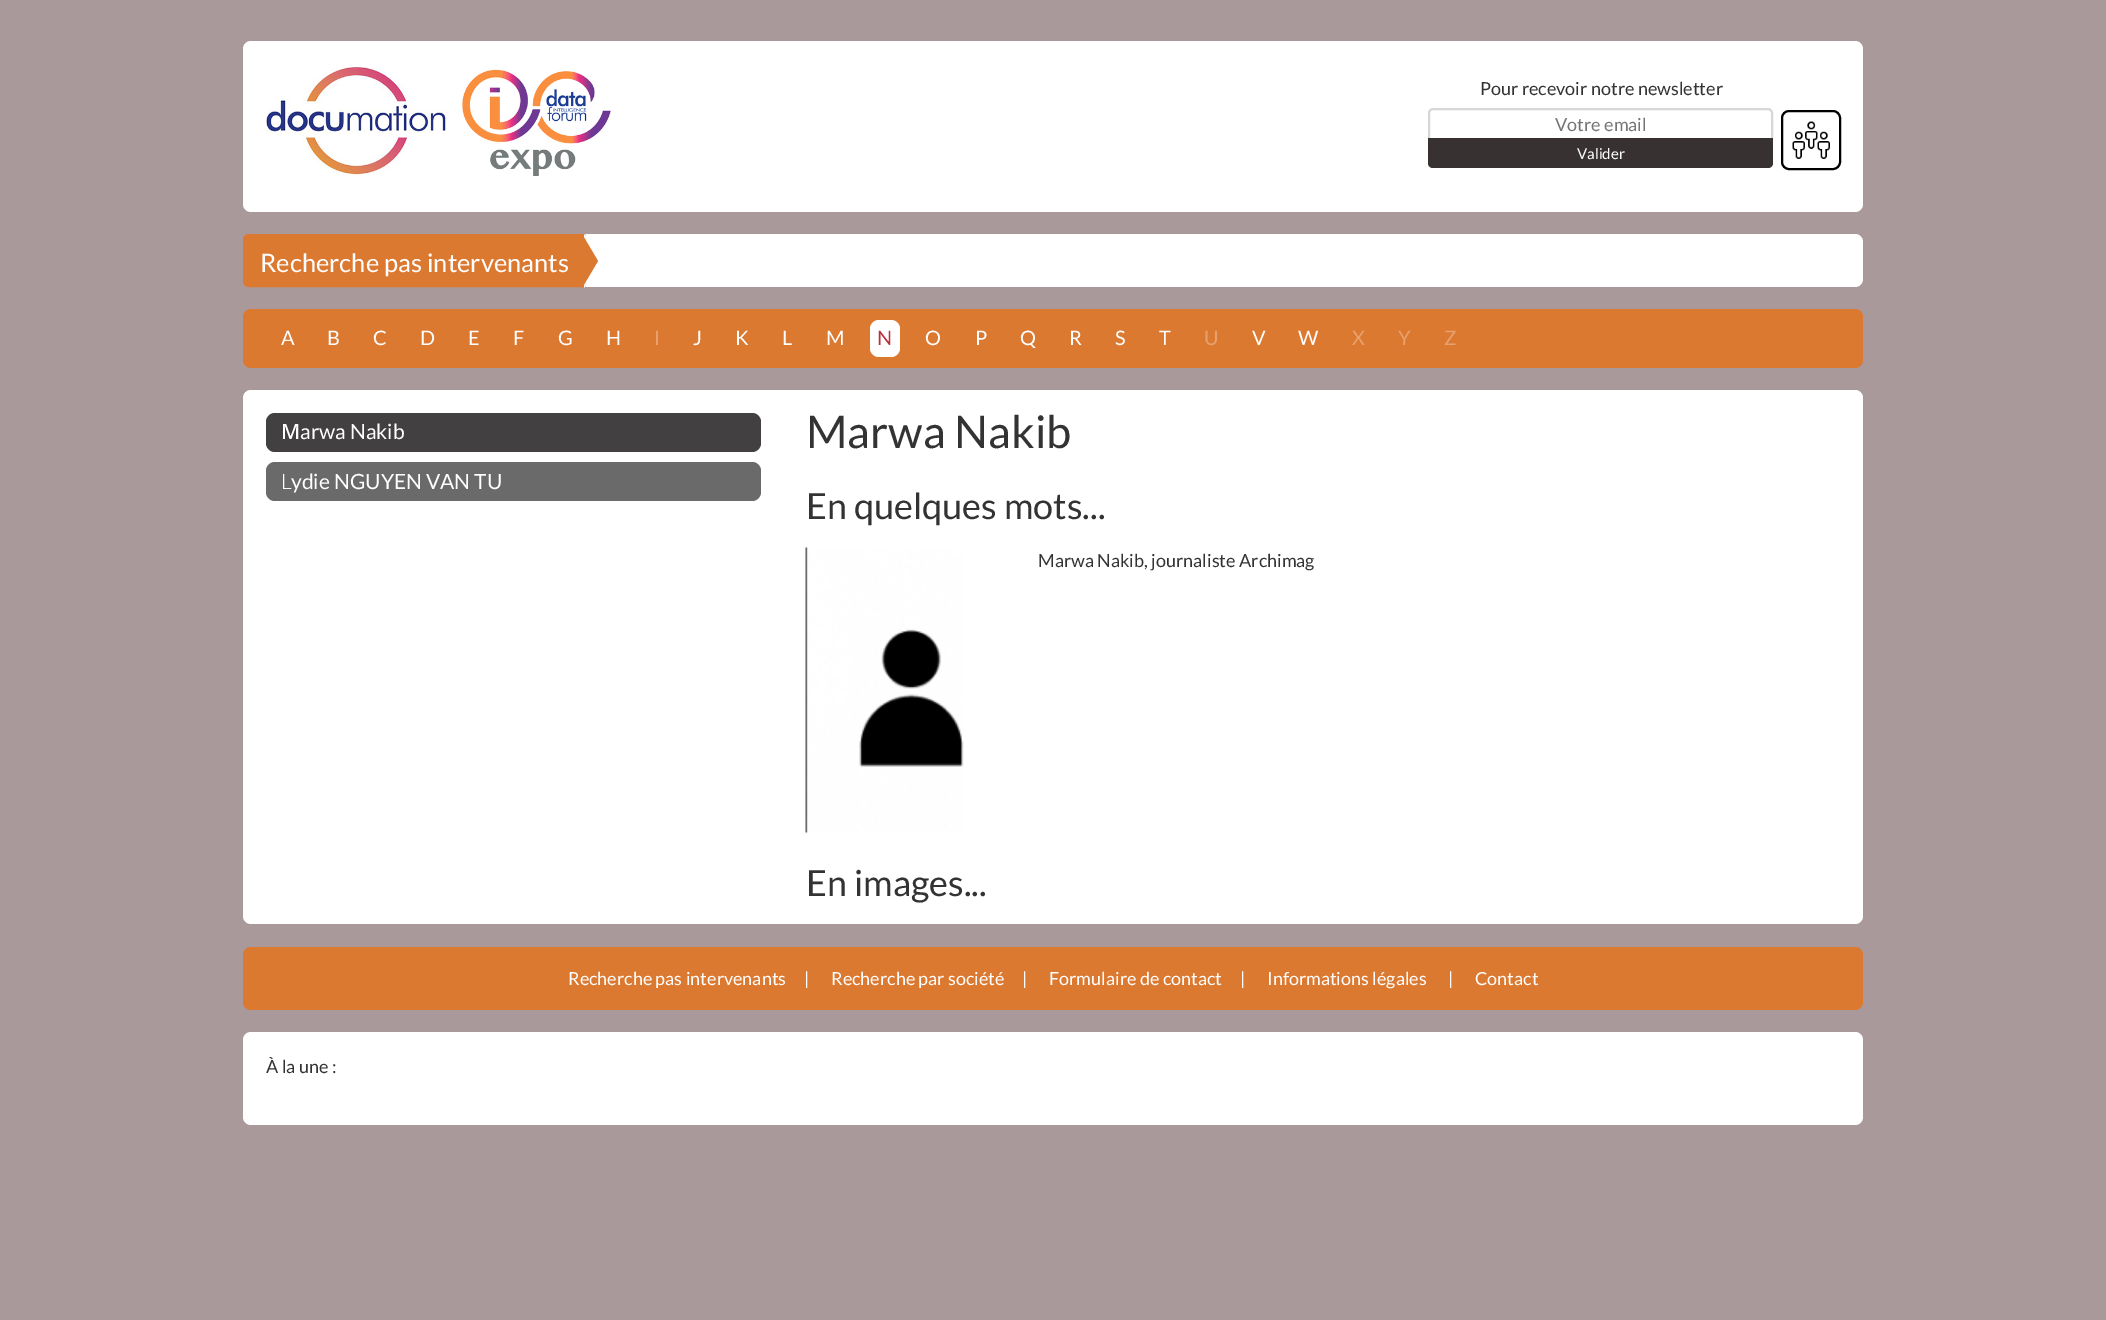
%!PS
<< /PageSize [2106 1320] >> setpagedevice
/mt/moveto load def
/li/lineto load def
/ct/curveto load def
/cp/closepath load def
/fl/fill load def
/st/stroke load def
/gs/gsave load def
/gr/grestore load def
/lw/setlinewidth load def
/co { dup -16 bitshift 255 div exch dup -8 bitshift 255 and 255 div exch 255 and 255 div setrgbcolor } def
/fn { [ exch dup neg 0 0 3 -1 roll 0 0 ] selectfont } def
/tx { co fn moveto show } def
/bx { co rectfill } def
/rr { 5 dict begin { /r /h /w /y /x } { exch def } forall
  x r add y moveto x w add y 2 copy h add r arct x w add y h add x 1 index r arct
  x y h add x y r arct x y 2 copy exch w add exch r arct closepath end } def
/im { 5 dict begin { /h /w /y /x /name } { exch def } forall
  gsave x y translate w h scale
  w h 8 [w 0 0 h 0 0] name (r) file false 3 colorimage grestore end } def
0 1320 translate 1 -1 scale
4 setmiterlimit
0 0 2106 1320 16#AA999A bx
16#FFFFFF co
243 41 1620 171 8 rr fl
(media/1.raw) 266 67 345 109 im
16#D7D7D7 co
2 lw
1433 109 mt 1768 109 li 1770 109 1772 111 1772 113 ct 1772 139 li 1429 139 li 1429 113 li 1429 111 1431 109 1433 109 ct cp st
16#373131 co
1428 138 mt 1773 138 li 1773 163 li 1773 166 1771 168 1768 168 ct 1433 168 li 1430 168 1428 166 1428 163 ct cp fl
16#000000 co
1782 111 58 58 7 rr st
(media/2.raw) 1792 121 38 38 im
16#FFFFFF co
243 234 1620 53 8 rr fl
16#DC7931 co
249 235 mt 584 235 li 584 286 li 249 286 li 246 286 244 284 244 281 ct 244 240 li 244 237 246 235 249 235 ct cp gs fl gr
st
16#FFFFFF co
584 288 mt 584 234 li 600 261 li cp fl
16#DC7931 co
582 288 mt 582 234 li 598 261 li cp fl
243 309 1620 59 8 rr fl
16#FFFFFF co
870 320 30 37 9 rr fl
243 390 1620 534 8 rr fl
16#424040 co
266 413 495 39 9 rr fl
16#6A6A6A co
266 462 495 39 9 rr fl
(media/3.raw) 805 547 159 286 im
16#DC7931 co
243 947 1620 63 8 rr fl
16#FFFFFF co
243 1032 1620 93 8 rr fl
(Pour recevoir notre newsletter) 1480 95 /Lato-Regular 18 16#333333 tx
(Votre email) 1555 131 /Lato-Regular 18 16#757575 tx
(Valider) 1577 159 /Lato-Regular 15 16#FFFFFF tx
(Recherche pas intervenants) 260 272 /Lato-Regular 25.5 16#FFFFFF tx
(A) 281 345 /Lato-Regular 20 16#FFFFFF tx
(B) 327 345 /Lato-Regular 20 16#FFFFFF tx
(C) 373 345 /Lato-Regular 20 16#FFFFFF tx
(D) 420 345 /Lato-Regular 20 16#FFFFFF tx
(E) 468 345 /Lato-Regular 20 16#FFFFFF tx
(F) 513 345 /Lato-Regular 20 16#FFFFFF tx
(G) 558 345 /Lato-Regular 20 16#FFFFFF tx
(H) 606 345 /Lato-Regular 20 16#FFFFFF tx
(I) 654 345 /Lato-Regular 20 16#E7A16F tx
(J) 693 345 /Lato-Regular 20 16#FFFFFF tx
(K) 735 345 /Lato-Regular 20 16#FFFFFF tx
(L) 782 345 /Lato-Regular 20 16#FFFFFF tx
(M) 826 345 /Lato-Regular 20 16#FFFFFF tx
(N) 877 345 /Lato-Regular 20 16#BB313B tx
(O) 925 345 /Lato-Regular 20 16#FFFFFF tx
(P) 975 345 /Lato-Regular 20 16#FFFFFF tx
(Q) 1020 345 /Lato-Regular 20 16#FFFFFF tx
(R) 1069 345 /Lato-Regular 20 16#FFFFFF tx
(S) 1115 345 /Lato-Regular 20 16#FFFFFF tx
(T) 1159 345 /Lato-Regular 20 16#FFFFFF tx
(U) 1204 345 /Lato-Regular 20 16#E7A16F tx
(V) 1252 345 /Lato-Regular 20 16#FFFFFF tx
(W) 1298 345 /Lato-Regular 20 16#FFFFFF tx
(X) 1352 345 /Lato-Regular 20 16#E7A16F tx
(Y) 1398 345 /Lato-Regular 20 16#E7A16F tx
(Z) 1444 345 /Lato-Regular 20 16#E7A16F tx
(M) 281 439 /NotoSans-Medium 21 16#FFFFFF tx
(arwa Nakib) 300 439 /Lato-Regular 21 16#FFFFFF tx
(L) 281 489 /NotoSans-Light 21 16#FFFFFF tx
(ydie NGUYEN VAN TU) 291 489 /Lato-Regular 21 16#FFFFFF tx
(Marwa Nakib) 806 448 /Lato-Regular 45 16#333333 tx
(En quelques mots...) 806 519 /Lato-Regular 36 16#333333 tx
(Marwa Nakib, journaliste Archimag) 1038 567 /Lato-Regular 18 16#333333 tx
(En images...) 806 896 /Lato-Regular 36 16#333333 tx
(Recherche pas intervenants) 568 985 /Lato-Regular 18 16#FFFFFF tx
(|) 804 985 /Lato-Regular 18 16#FFFFFF tx
(Recherche par société) 831 985 /Lato-Regular 18 16#FFFFFF tx
(|) 1022 985 /Lato-Regular 18 16#FFFFFF tx
(Formulaire de contact) 1049 985 /Lato-Regular 18 16#FFFFFF tx
(|) 1240 985 /Lato-Regular 18 16#FFFFFF tx
(Informations légales) 1267 985 /Lato-Regular 18 16#FFFFFF tx
(|) 1448 985 /Lato-Regular 18 16#FFFFFF tx
(Contact) 1475 985 /Lato-Regular 18 16#FFFFFF tx
(À la une :) 266 1073 /Lato-Regular 18 16#333333 tx
showpage
